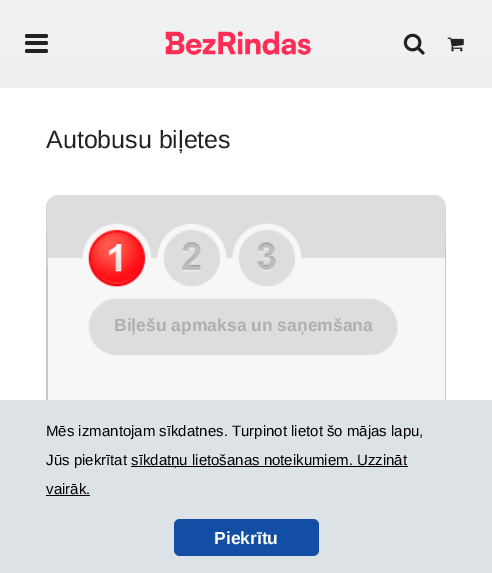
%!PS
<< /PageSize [492 573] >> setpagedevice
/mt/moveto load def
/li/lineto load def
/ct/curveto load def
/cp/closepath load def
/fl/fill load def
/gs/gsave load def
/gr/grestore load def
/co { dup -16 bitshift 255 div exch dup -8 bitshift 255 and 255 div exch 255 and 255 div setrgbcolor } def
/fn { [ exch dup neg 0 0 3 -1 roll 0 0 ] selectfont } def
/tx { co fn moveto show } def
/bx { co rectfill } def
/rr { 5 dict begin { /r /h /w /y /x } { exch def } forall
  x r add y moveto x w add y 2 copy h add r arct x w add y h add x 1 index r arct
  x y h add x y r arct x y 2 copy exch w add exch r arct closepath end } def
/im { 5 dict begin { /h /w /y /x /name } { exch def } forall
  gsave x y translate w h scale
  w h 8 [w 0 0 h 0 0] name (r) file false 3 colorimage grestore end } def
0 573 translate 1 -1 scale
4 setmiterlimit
0 0 492 573 16#FFFFFF bx
gs 0 0 mt 492 0 li 492 88 li 0 88 li cp clip newpath
<< /ShadingType 2 /ColorSpace /DeviceRGB /Coords [246 0 246 88] /Extend [true true] /Function << /FunctionType 2 /Domain [0 1] /C0 [.945 .949 .953] /C1 [.937 .937 .941] /N 1 >> >> shfill gr
16#222222 co
25 34 23 4 2 rr fl
25 41 23 4 2 rr fl
25 49 23 4 2 rr fl
(media/1.raw) 165 31 146 24 im
(media/2.raw) 403 33 22 22 im
(media/3.raw) 447 37 17 15 im
16#F7F7F7 co
59 195 mt 433 195 li 440 195 446 201 446 208 ct 446 361 li 46 361 li 46 208 li 46 201 52 195 59 195 ct cp fl
16#DDDDDD co
59 195 mt 53 195 48 199 46 205 ct 48 278 li 48 258 li 445 258 li 446 208 li 446 201 441 195 434 195 ct cp fl
16#C8C8C8 co
446 208 mt 445 258 li 445 361 li 446 361 li cp fl
46 206 mt 46 205 li 48 278 li 48 361 li 46 361 li cp fl
(media/4.raw) 82 223 70 64 im
(media/5.raw) 157 223 70 64 im
(media/6.raw) 232 223 70 64 im
(media/7.raw) 88 298 284 57 im
(media/8.raw) 372 298 26 57 im
48 361 397 39 16#F7F7F7 bx
16#C8C8C8 co
46 361 mt 446 361 li 446 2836 li 446 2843 441 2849 434 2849 ct 59 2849 li 52 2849 46 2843 46 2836 ct cp 48 361 mt 445 361 li 445 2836 li 445 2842 440 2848 434 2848 ct 59 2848 li 53 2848 48 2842 48 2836 ct cp eofill
0 400 492 173 16#DDE2E7 bx
131 466 277 1 16#000000 bx
46 495 44 1 16#000000 bx
16#124FA4 co
174 519 145 37 6 rr fl
(Autobusu biļetes) 46 148 /LiberationSans-Regular 25 16#222222 tx
(Biļešu apmaksa un saņemšana) 114 331 /LiberationSans-Bold 17.5 16#AFAFAF tx
(Mēs izmantojam sīkdatnes. Turpinot lietot šo mājas lapu,) 46 436 /LiberationSans-Regular 15 16#000000 tx
(Jūs piekrītat) 46 465 /LiberationSans-Regular 15 16#000000 tx
(sīkdatņu lietošanas noteikumiem. Uzzināt) 131 465 /LiberationSans-Regular 15 16#000000 tx
(vairāk.) 46 494 /LiberationSans-Regular 15 16#000000 tx
(Piekrītu) 214 544 /LiberationSans-Bold 17.5 16#FFFFFF tx
showpage
